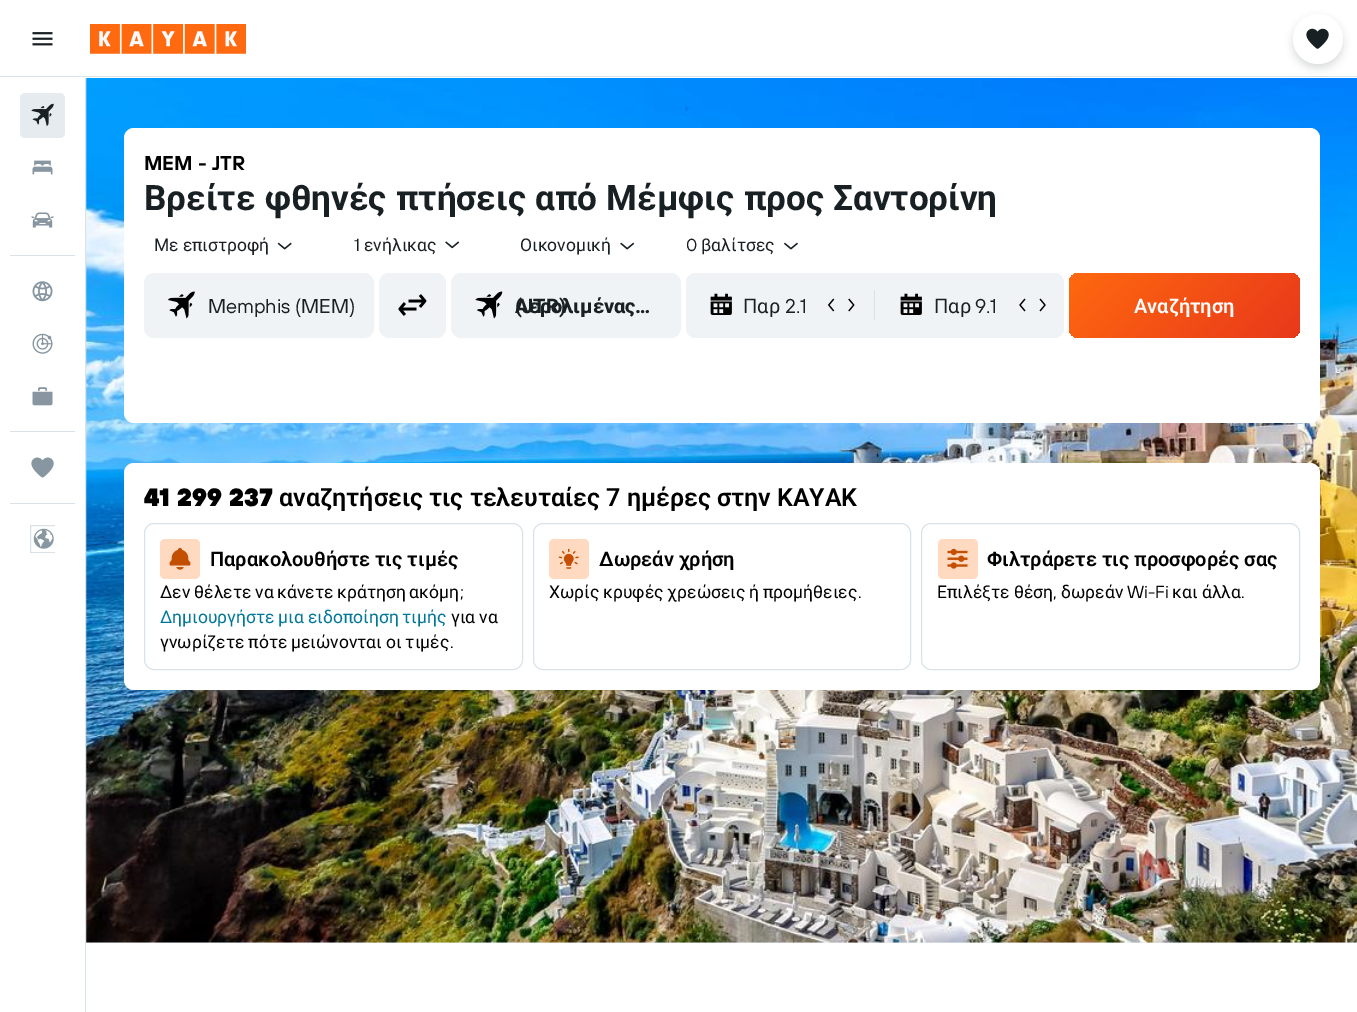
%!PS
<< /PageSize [1357 1012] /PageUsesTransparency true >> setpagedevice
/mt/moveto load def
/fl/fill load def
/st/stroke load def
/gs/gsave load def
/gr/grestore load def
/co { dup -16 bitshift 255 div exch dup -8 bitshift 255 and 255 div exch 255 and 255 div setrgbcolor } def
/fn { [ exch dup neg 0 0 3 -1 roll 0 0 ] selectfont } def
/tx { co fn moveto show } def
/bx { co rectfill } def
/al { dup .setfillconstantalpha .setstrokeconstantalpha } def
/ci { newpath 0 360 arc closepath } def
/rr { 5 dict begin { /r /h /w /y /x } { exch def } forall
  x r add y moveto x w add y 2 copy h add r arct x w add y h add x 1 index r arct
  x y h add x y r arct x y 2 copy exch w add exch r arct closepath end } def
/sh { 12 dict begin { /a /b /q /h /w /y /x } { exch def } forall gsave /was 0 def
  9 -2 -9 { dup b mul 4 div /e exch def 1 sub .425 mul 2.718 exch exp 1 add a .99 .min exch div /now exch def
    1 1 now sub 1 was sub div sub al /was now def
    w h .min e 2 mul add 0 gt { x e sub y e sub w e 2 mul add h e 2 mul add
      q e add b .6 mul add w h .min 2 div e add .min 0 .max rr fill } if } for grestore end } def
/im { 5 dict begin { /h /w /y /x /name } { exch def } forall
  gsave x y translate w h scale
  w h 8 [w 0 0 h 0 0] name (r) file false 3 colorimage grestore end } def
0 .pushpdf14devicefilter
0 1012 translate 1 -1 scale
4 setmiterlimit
0 0 1357 1012 16#FFFFFF bx
0 76 1357 1 16#D9E2E8 bx
(media/1.raw) 32 32 21 14 im
(media/2.raw) 90 24 156 30 im
86 78 1271 865 16#E5EBF0 bx
(media/12.raw) 86 78 1271 865 im
16#192024 co
1293 18 50 50 25 4 .16 sh
16#FFFFFF co
1318 39 25 ci fl
(media/3.raw) 1306 28 23 21 im
85 78 1 934 16#D9E2E8 bx
16#E6EBEF co
20 93 45 45 5 rr fl
(media/4.raw) 31 103 23 24 im
(media/5.raw) 32 160 21 15 im
(media/6.raw) 31 212 23 16 im
10 255 65 1 16#D9E2E8 bx
(media/7.raw) 32 281 21 21 im
(media/8.raw) 32 333 21 21 im
(media/9.raw) 32 387 21 19 im
10 431 65 1 16#D9E2E8 bx
(media/10.raw) 31 457 23 21 im
10 503 65 1 16#D9E2E8 bx
gs
30 525 25 28 rectclip
30.5 525.5 27 27 rectstroke
gr
(media/11.raw) 33 528 21 21 im
16#FFFFFF co
124 128 1196 295 10 rr fl
(media/13.raw) 277 242 15 8 im
(media/14.raw) 445 241 15 8 im
(media/15.raw) 620 242 15 8 im
(media/16.raw) 783 242 15 8 im
16#F0F3F5 co
144.5 273.5 229 64 9.5 rr gs fl gr
st
(media/17.raw) 167 291 28 28 im
379 273 67 65 10 rr fl
(media/18.raw) 398 294 29 22 im
451.5 273.5 229 64 9.5 rr gs fl gr
st
(media/19.raw) 475 291 28 28 im
686 273 378 65 10 rr fl
686 273 187 65 10 rr fl
(media/20.raw) 710 293 22 22 im
(media/21.raw) 828 298 7 14 im
(media/22.raw) 848 298 7 14 im
874 290 1 30 16#D9E2E8 bx
16#F0F3F5 co
876 273 188 65 10 rr fl
(media/20.raw) 900 293 22 22 im
(media/23.raw) 1019 298 7 14 im
(media/24.raw) 1039 298 7 14 im
gs 1069 273 231 65 10 rr clip newpath
<< /ShadingType 2 /ColorSpace /DeviceRGB /Coords [1110 231 1258 379] /Extend [true true] /Function << /FunctionType 2 /Domain [0 1] /C0 [1 .412 .059] /C1 [.91 .22 .106] /N 1 >> >> shfill gr
16#FFFFFF co
124 463 1196 227 10 rr fl
16#D9E2E8 co
144.5 523.5 378 146 9.5 rr st
16#FFDAC1 co
160 539 40 40 5 rr fl
(media/25.raw) 169 547 22 23 im
16#D9E2E8 co
533.5 523.5 377 146 9.5 rr st
16#FFDAC1 co
549 539 40 40 5 rr fl
(media/26.raw) 558 548 21 21 im
16#D9E2E8 co
921.5 523.5 378 146 9.5 rr st
16#FFDAC1 co
938 539 40 40 5 rr fl
(media/27.raw) 947 548 21 21 im
(MEM - JTR) 144 170 /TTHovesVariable-SemiBold 20 16#000000 tx
/Roboto-Bold 35 fn
16#192024 co
144 210 mt .75 0 32 (Βρείτε φθηνές πτήσεις από Μέμφις προς Σαντορίνη) widthshow
/Roboto-Regular 17.5 fn
154 251 mt -.5 0 32 (Με επιστροφή) widthshow
(1) 354 251 /TTHovesVariable-Regular 17.5 16#192024 tx
(ενήλικας) 364 251 /Roboto-Regular 17.5 16#192024 tx
(Οικονομική) 520 251 /Roboto-Regular 17.5 16#192024 tx
(0) 686 251 /TTHovesVariable-Regular 17.5 16#192024 tx
(βαλίτσες) 701 251 /Roboto-Regular 17.5 16#192024 tx
(Memphis \(MEM\)) 208 313 /TTHovesVariable-Regular 20 16#192024 tx
/Roboto-ExtraBold 20 fn
515 313 mt 21 0 32 (Αερολιμένας…) widthshow
(\(JTR\)) 515 313 /Roboto-ExtraBold 20 16#192024 tx
(Παρ) 743 313 /Roboto-Regular 20 16#192024 tx
(2.1) 785 313 /TTHovesVariable-Regular 20 16#192024 tx
(Παρ) 934 313 /Roboto-Regular 20 16#192024 tx
(9.1) 975 313 /TTHovesVariable-Regular 20 16#192024 tx
(Αναζήτηση) 1134 313 /Roboto-SemiBold 20 16#FFFFFF tx
(41 299 237) 144 506 /TTHovesVariable-Black 25 16#000000 tx
(αναζητήσεις τις τελευταίες 7 ημέρες στην KAYAK) 279 506 /Roboto-SemiBold 25 16#000000 tx
(Παρακολουθήστε τις τιμές) 210 566 /Roboto-SemiBold 20 16#000000 tx
/Roboto-Regular 17.5 fn
160 598 mt -.5 0 32 (Δεν θέλετε να κάνετε κράτηση ακόμη) widthshow
(;) 460 598 /TTHovesVariable-Regular 17.5 16#000000 tx
/Roboto-Regular 17.5 fn
16#007799 co
160 623 mt -.5 0 32 (Δημιουργήστε μια ειδοποίηση τιμής) widthshow
16#000000 co
451 623 mt -.5 0 32 (για να) widthshow
160 648 mt -.5 0 32 (γνωρίζετε πότε μειώνονται οι τιμές) widthshow
(.) 450 648 /TTHovesVariable-Regular 17.5 16#000000 tx
(Δωρεάν χρήση) 599 566 /Roboto-SemiBold 20 16#000000 tx
/Roboto-Regular 17.5 fn
549 598 mt -.5 0 32 (Χωρίς κρυφές χρεώσεις ή προμήθειες) widthshow
(.) 858 598 /TTHovesVariable-Regular 17.5 16#000000 tx
(Φιλτράρετε τις προσφορές σας) 987 566 /Roboto-SemiBold 20 16#000000 tx
(Επιλέξτε θέση) 937 598 /Roboto-Regular 17.5 16#000000 tx
(,) 1053 598 /TTHovesVariable-Regular 17.5 16#000000 tx
(δωρεάν) 1061 598 /Roboto-Regular 17.5 16#000000 tx
(Wi-Fi) 1127 598 /TTHovesVariable-Regular 17.5 16#000000 tx
(και άλλα) 1172 598 /Roboto-Regular 17.5 16#000000 tx
(.) 1241 598 /TTHovesVariable-Regular 17.5 16#000000 tx
.poppdf14devicefilter showpage
